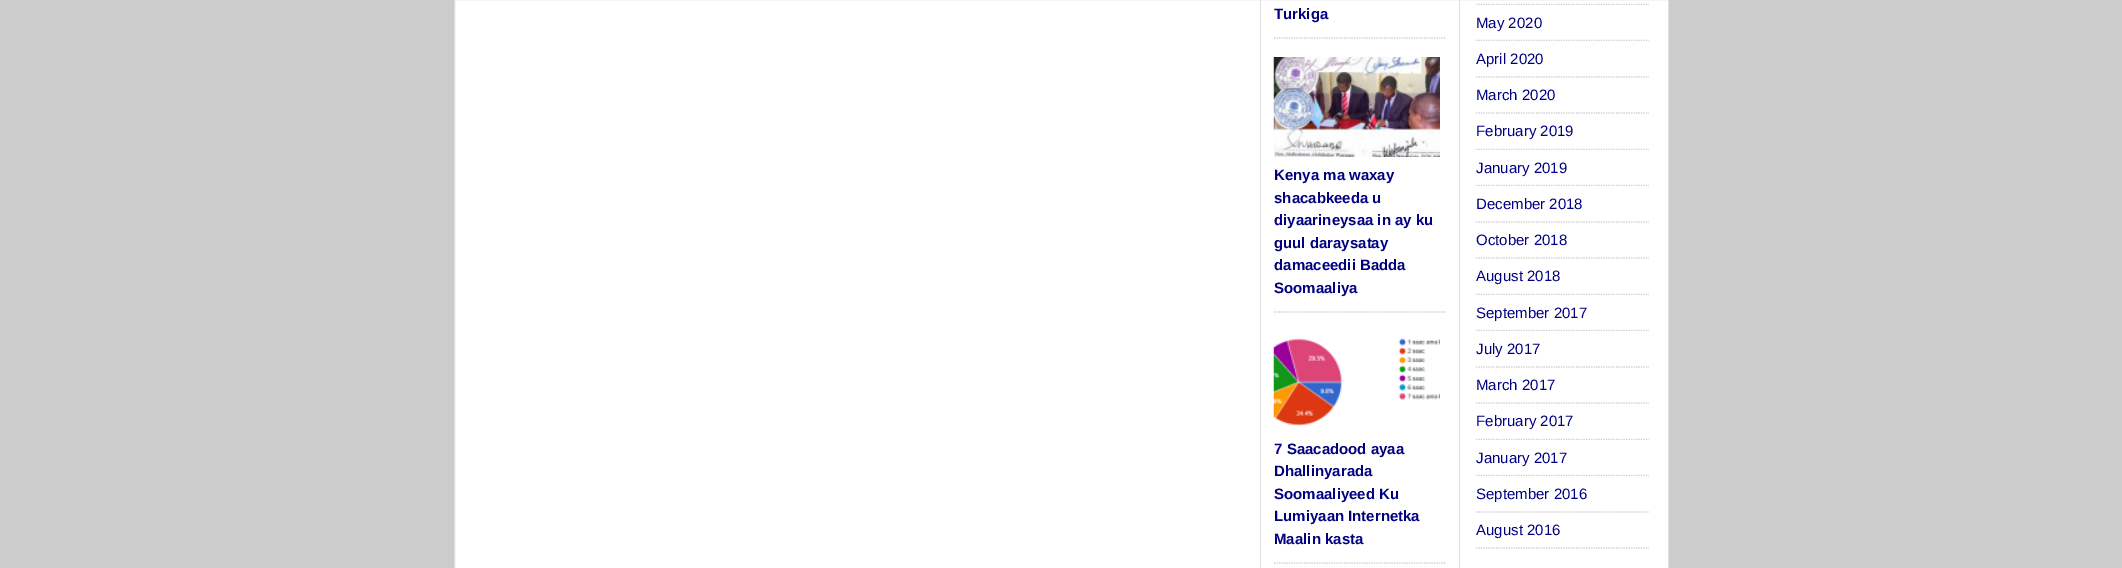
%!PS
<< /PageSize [2122 568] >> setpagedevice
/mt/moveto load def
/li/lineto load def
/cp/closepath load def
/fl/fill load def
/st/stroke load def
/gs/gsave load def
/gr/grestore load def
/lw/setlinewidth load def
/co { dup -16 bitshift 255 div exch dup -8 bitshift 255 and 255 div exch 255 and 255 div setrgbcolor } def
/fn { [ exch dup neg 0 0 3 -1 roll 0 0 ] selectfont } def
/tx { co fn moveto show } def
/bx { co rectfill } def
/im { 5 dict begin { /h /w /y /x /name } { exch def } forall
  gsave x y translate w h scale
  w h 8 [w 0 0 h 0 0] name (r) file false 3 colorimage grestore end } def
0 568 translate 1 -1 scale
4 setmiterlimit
0 0 2122 568 16#CCCCCC bx
16#FFFFFF co
454.5 -.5 mt 1668.5 -.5 li 1668.5 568.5 li 454.5 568.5 li cp gs fl gr
16#DDDDDD co
st
1260 0 1 568 16#E0E0E0 bx
1459 0 1 568 16#DDDDDD bx
16#CCCCCC co
1.2 lw
[1.25 1.25] 0 setdash
1274 38 mt 1446 38 li st
(media/1.raw) 1273 57 167 100 im
1274 312 mt 1446 312 li st
(media/2.raw) 1273 338 167 88 im
1274 563 mt 1446 563 li st
1476 4.5 mt 1649 4.5 li st
1476 5 171 1 16#FFFFFF bx
16#CCCCCC co
1476 40.5 mt 1649 40.5 li st
1476 41 171 1 16#FFFFFF bx
16#CCCCCC co
1476 77 mt 1649 77 li st
1476 113 mt 1649 113 li st
1476 149.5 mt 1649 149.5 li st
1476 150 171 1 16#FFFFFF bx
16#CCCCCC co
1476 185.5 mt 1649 185.5 li st
1476 186 171 1 16#FFFFFF bx
16#CCCCCC co
1476 222 mt 1649 222 li st
1476 258 mt 1649 258 li st
1476 294.5 mt 1649 294.5 li st
1476 295 171 1 16#FFFFFF bx
16#CCCCCC co
1476 330.5 mt 1649 330.5 li st
1476 331 171 1 16#FFFFFF bx
16#CCCCCC co
1476 367 mt 1649 367 li st
1476 403 mt 1649 403 li st
1476 439.5 mt 1649 439.5 li st
1476 440 171 1 16#FFFFFF bx
16#CCCCCC co
1476 475.5 mt 1649 475.5 li st
1476 476 171 1 16#FFFFFF bx
16#CCCCCC co
1476 512 mt 1649 512 li st
1476 548 mt 1649 548 li st
(Turkiga) 1274 19 /LiberationSans-Bold 15 16#000080 tx
(Kenya ma waxay) 1274 180 /LiberationSans-Bold 15 16#000080 tx
(shacabkeeda u) 1274 203 /LiberationSans-Bold 15 16#000080 tx
(diyaarineysaa in ay ku) 1274 225 /LiberationSans-Bold 15 16#000080 tx
(guul daraysatay) 1274 248 /LiberationSans-Bold 15 16#000080 tx
(damaceedii Badda) 1274 270 /LiberationSans-Bold 15 16#000080 tx
(Soomaaliya) 1274 293 /LiberationSans-Bold 15 16#000080 tx
(7 Saacadood ayaa) 1274 454 /LiberationSans-Bold 15 16#000080 tx
(Dhallinyarada) 1274 476 /LiberationSans-Bold 15 16#000080 tx
(Soomaaliyeed Ku) 1274 499 /LiberationSans-Bold 15 16#000080 tx
(Lumiyaan Internetka) 1274 521 /LiberationSans-Bold 15 16#000080 tx
(Maalin kasta) 1274 544 /LiberationSans-Bold 15 16#000080 tx
(May 2020) 1476 28 /LiberationSans-Regular 15 16#000080 tx
(April 2020) 1476 64 /LiberationSans-Regular 15 16#000080 tx
(March 2020) 1476 100 /LiberationSans-Regular 15 16#000080 tx
(February 2019) 1476 136 /LiberationSans-Regular 15 16#000080 tx
(January 2019) 1476 173 /LiberationSans-Regular 15 16#000080 tx
(December 2018) 1476 209 /LiberationSans-Regular 15 16#000080 tx
(October 2018) 1476 245 /LiberationSans-Regular 15 16#000080 tx
(August 2018) 1476 281 /LiberationSans-Regular 15 16#000080 tx
(September 2017) 1476 318 /LiberationSans-Regular 15 16#000080 tx
(July 2017) 1476 354 /LiberationSans-Regular 15 16#000080 tx
(March 2017) 1476 390 /LiberationSans-Regular 15 16#000080 tx
(February 2017) 1476 426 /LiberationSans-Regular 15 16#000080 tx
(January 2017) 1476 463 /LiberationSans-Regular 15 16#000080 tx
(September 2016) 1476 499 /LiberationSans-Regular 15 16#000080 tx
(August 2016) 1476 535 /LiberationSans-Regular 15 16#000080 tx
showpage
